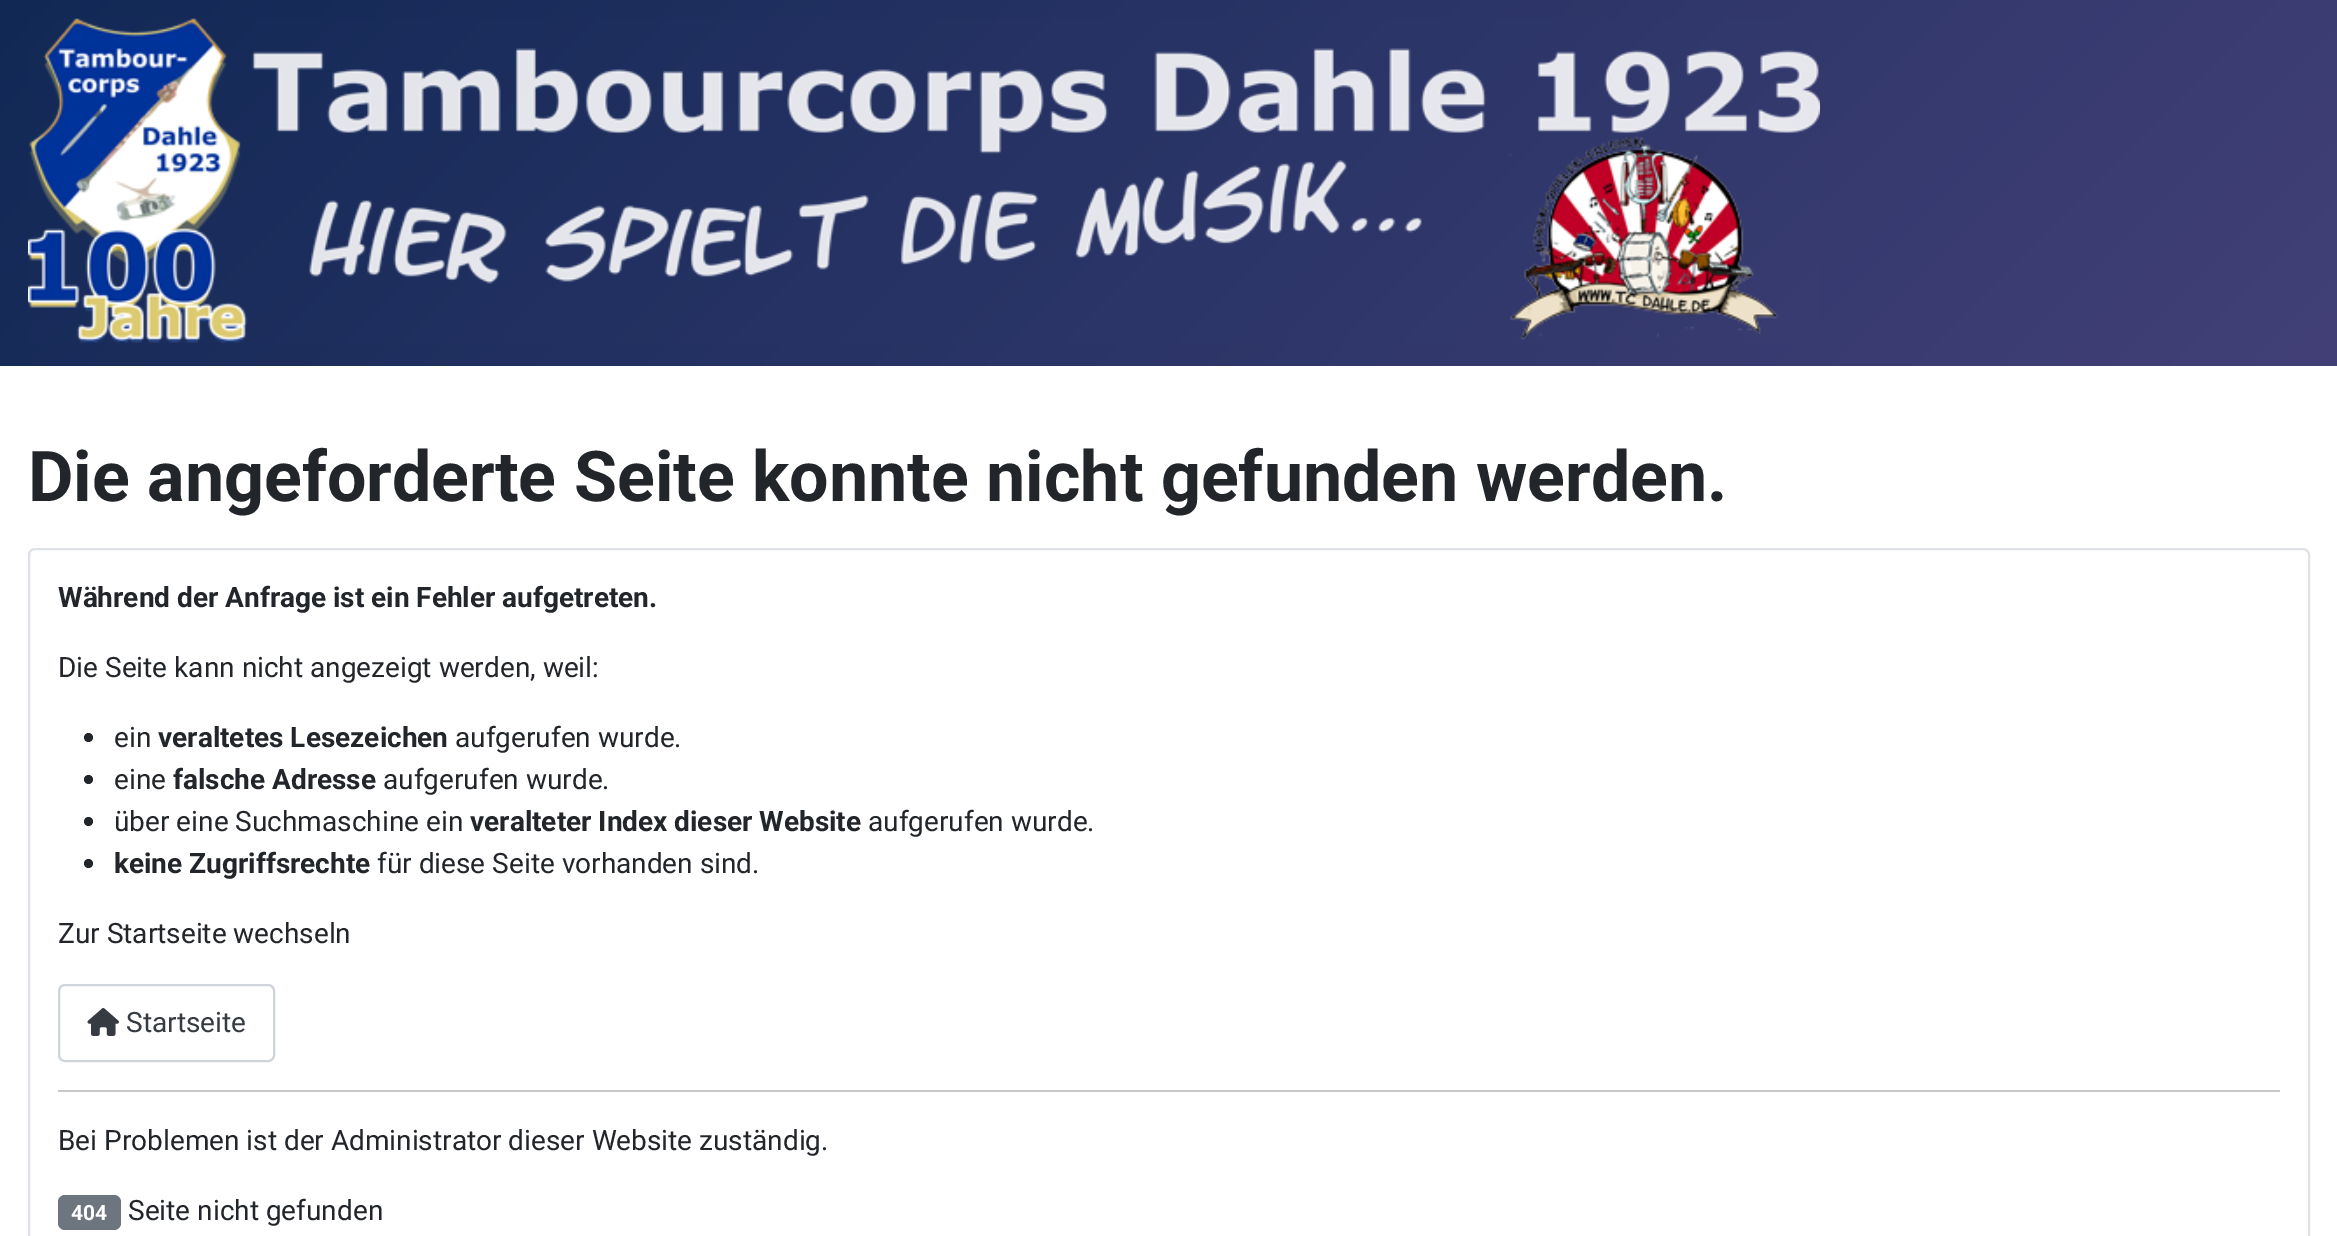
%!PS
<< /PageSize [2337 1236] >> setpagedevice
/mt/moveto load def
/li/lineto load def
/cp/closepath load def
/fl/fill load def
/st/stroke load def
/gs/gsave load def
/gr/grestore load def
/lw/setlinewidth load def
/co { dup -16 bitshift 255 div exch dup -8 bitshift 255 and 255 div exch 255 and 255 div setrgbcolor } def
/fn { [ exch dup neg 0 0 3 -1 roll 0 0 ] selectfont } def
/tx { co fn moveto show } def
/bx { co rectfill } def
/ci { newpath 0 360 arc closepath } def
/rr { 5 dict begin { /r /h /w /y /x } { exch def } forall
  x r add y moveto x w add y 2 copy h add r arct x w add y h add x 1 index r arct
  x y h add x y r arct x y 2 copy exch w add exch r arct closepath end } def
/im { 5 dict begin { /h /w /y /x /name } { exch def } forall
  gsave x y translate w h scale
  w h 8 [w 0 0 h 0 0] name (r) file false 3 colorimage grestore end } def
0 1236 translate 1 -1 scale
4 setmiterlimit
0 0 2337 1236 16#FFFFFF bx
gs 0 0 mt 2337 0 li 2337 366 li 0 366 li cp clip newpath
<< /ShadingType 2 /ColorSpace /DeviceRGB /Coords [492 -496 1846 858] /Extend [true true] /Function << /FunctionType 2 /Domain [0 1] /C0 [.067 .157 .333] /C1 [.259 .251 .467] /N 1 >> >> shfill gr
(media/1.raw) 28 18 1792 325 im
16#DFE3E7 co
2 lw
29 549 2280 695 6 rr st
16#22262A co
88.5 737.5 4.5 ci fl
88.5 779.5 4.5 ci fl
88.5 821.5 4.5 ci fl
88.5 863.5 4.5 ci fl
16#CED4DA co
59 985 215 76 6 rr st
(media/2.raw) 87 1008 32 28 im
58 1090 2222 2 16#C8C9CA bx
16#6D757E co
58 1195 63 35 7 rr fl
(Die angeforderte Seite konnte nicht gefunden werden.) 28 501 /Roboto-Bold 70 16#22262A tx
(Während der Anfrage ist ein Fehler aufgetreten.) 58 607 /Roboto-Bold 28 16#22262A tx
(Die Seite kann nicht angezeigt werden, weil:) 58 677 /Roboto-Regular 28 16#22262A tx
(ein) 114 747 /Roboto-Regular 28 16#22262A tx
(veraltetes Lesezeichen) 158 747 /Roboto-Bold 28 16#22262A tx
(aufgerufen wurde.) 455 747 /Roboto-Regular 28 16#22262A tx
(eine) 114 789 /Roboto-Regular 28 16#22262A tx
(falsche Adresse) 173 789 /Roboto-Bold 28 16#22262A tx
(aufgerufen wurde.) 383 789 /Roboto-Regular 28 16#22262A tx
(über eine Suchmaschine ein) 114 831 /Roboto-Regular 28 16#22262A tx
(veralteter Index dieser Website) 470 831 /Roboto-Bold 28 16#22262A tx
(aufgerufen wurde.) 868 831 /Roboto-Regular 28 16#22262A tx
(keine Zugriffsrechte) 114 873 /Roboto-Bold 28 16#22262A tx
(für diese Seite vorhanden sind.) 377 873 /Roboto-Regular 28 16#22262A tx
(Zur Startseite wechseln) 58 943 /Roboto-Regular 28 16#22262A tx
(Startseite) 126 1032 /Roboto-Regular 28 16#353B41 tx
(Bei Problemen ist der Administrator dieser Website zuständig.) 58 1150 /Roboto-Regular 28 16#22262A tx
(404) 71 1220 /Roboto-Bold 21 16#FFFFFF tx
(Seite nicht gefunden) 128 1220 /Roboto-Regular 28 16#22262A tx
showpage
